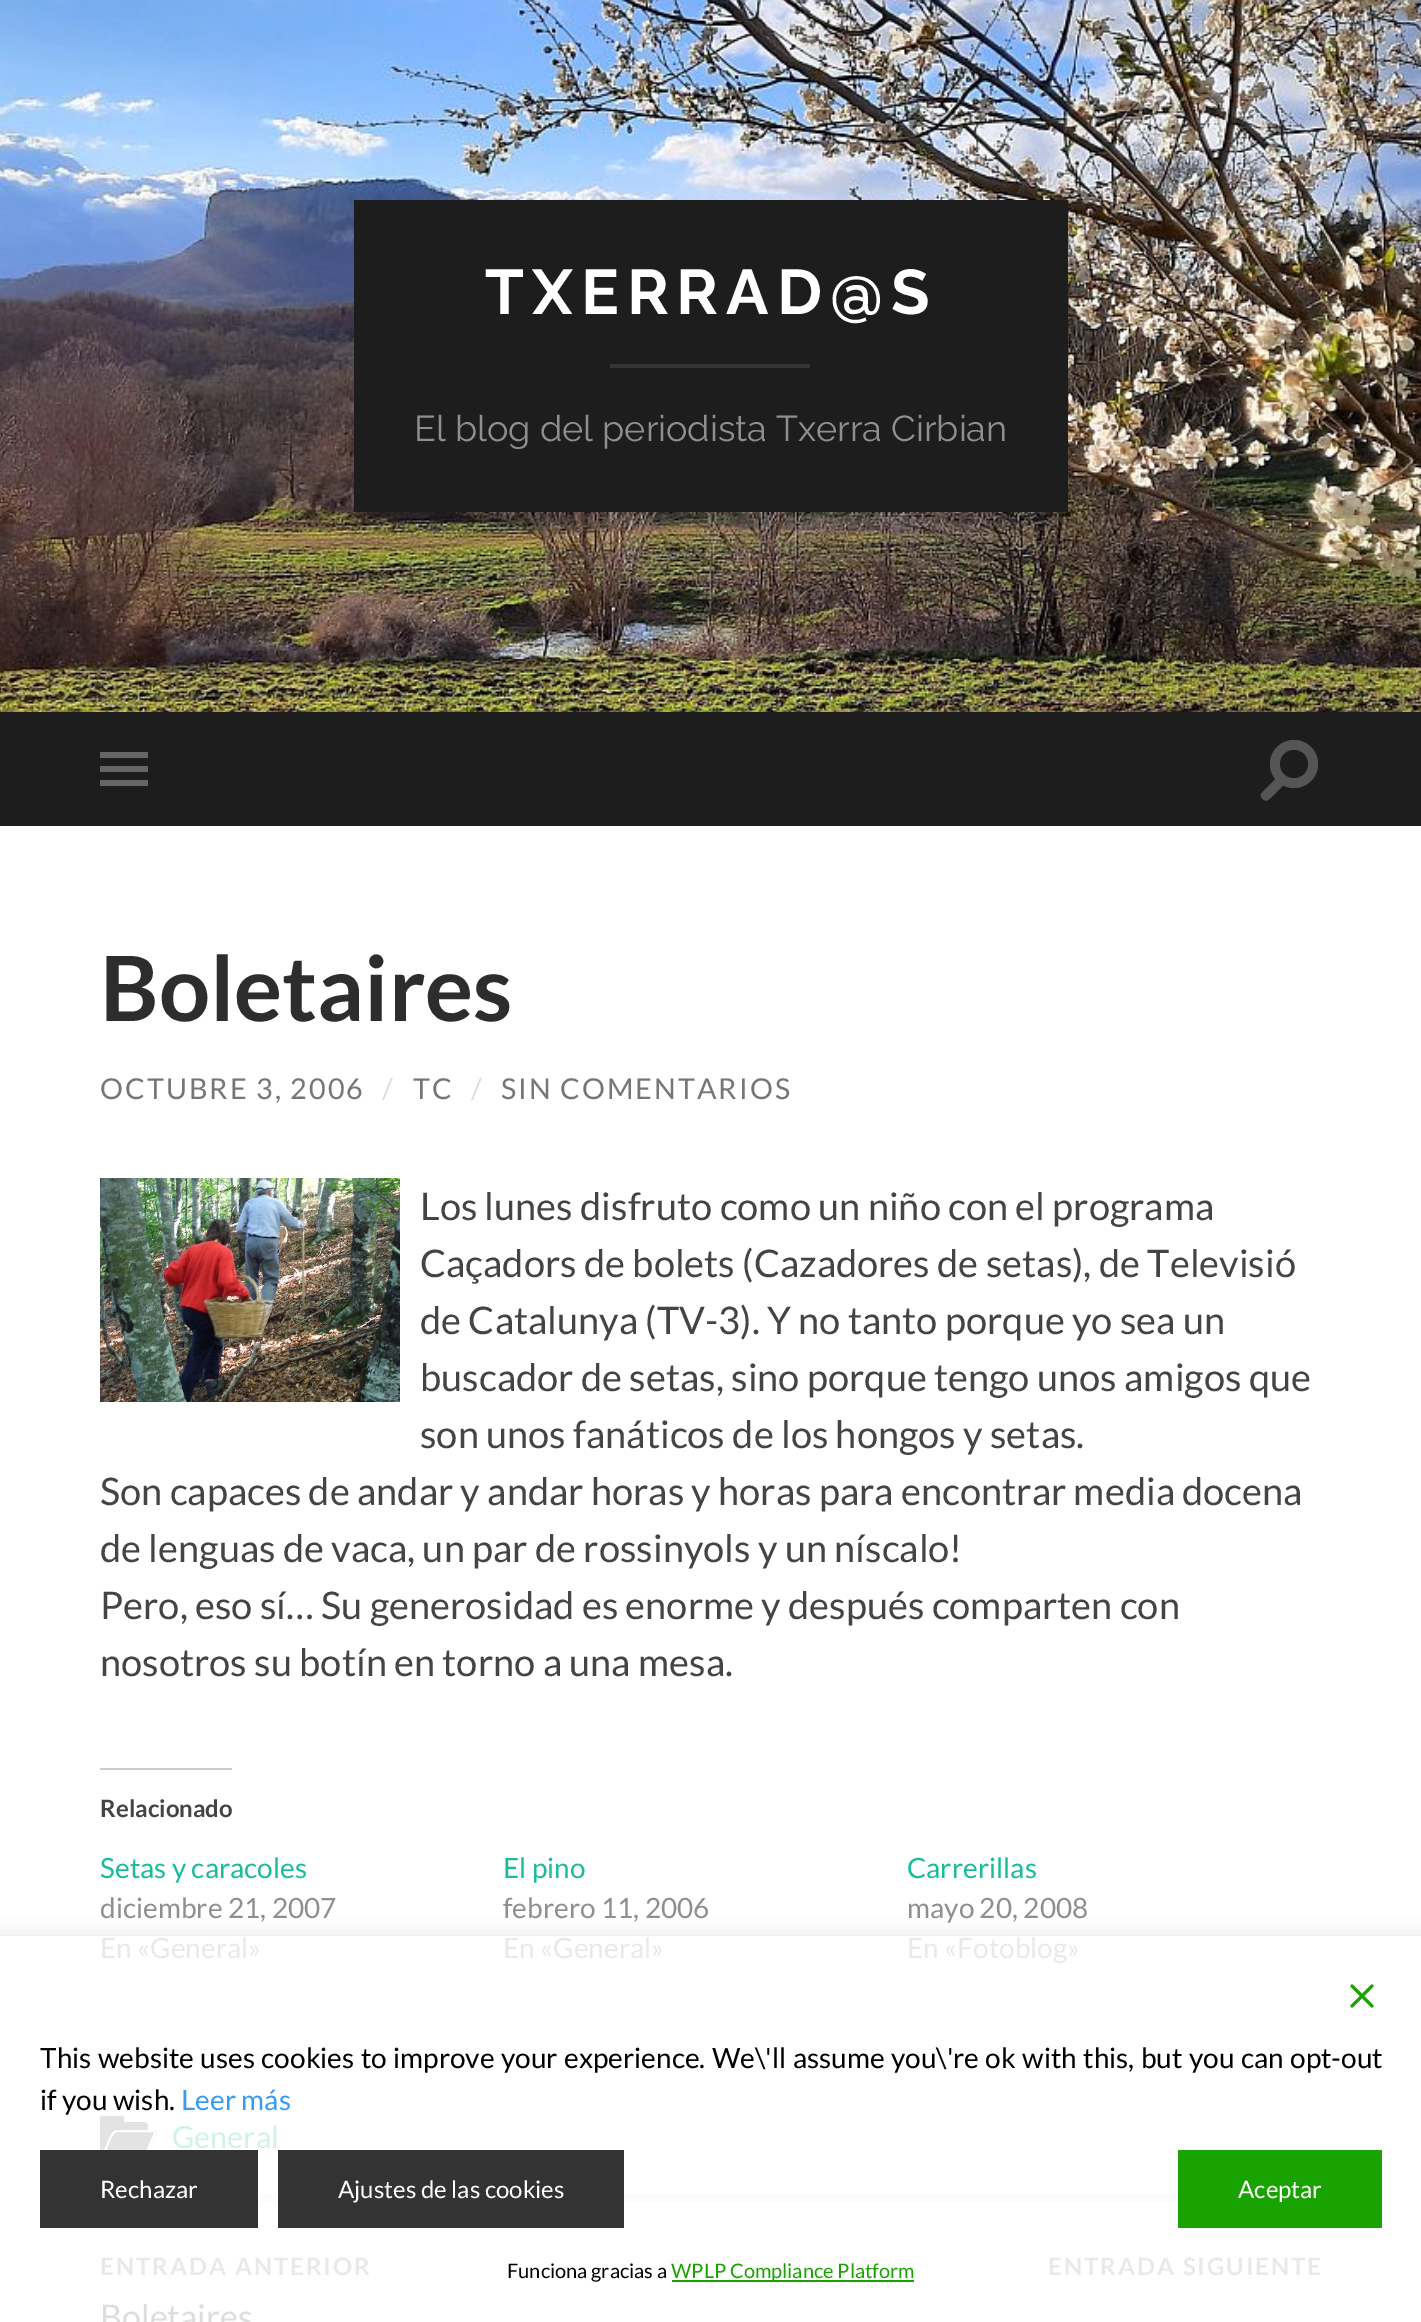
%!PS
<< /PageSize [1421 2322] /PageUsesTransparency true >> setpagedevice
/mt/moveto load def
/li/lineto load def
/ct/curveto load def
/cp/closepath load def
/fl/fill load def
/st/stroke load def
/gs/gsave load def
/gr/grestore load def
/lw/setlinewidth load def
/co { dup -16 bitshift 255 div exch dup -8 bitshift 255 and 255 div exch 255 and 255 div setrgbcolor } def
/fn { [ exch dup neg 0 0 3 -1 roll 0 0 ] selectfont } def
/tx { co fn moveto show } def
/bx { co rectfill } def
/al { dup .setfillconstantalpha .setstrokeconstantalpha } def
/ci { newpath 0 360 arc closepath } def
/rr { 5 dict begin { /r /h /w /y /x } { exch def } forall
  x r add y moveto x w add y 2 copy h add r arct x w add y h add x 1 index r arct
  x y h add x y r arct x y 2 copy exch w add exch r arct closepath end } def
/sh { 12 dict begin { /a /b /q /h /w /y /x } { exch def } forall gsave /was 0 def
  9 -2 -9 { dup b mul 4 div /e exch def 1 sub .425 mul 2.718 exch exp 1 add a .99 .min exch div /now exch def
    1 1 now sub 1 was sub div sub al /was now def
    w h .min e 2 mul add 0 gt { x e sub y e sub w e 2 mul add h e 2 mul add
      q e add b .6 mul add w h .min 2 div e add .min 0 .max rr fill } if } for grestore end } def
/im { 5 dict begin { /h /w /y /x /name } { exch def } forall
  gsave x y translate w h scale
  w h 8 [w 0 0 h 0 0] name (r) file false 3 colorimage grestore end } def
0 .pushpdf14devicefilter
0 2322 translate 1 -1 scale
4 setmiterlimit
0 0 1421 2322 16#FFFFFF bx
(media/1.raw) 0 0 1421 712 im
354 200 714 312 16#1D1D1D bx
610 364 200 4 16#343434 bx
0 712 1421 114 16#1D1D1D bx
100 752 48 6 16#666666 bx
100 766 48 6 16#666666 bx
100 780 48 6 16#666666 bx
16#555555 co
1294 764 24 ci fl
16#1D1D1D co
1294 764 14 ci fl
16#555555 co
1262 792.5 mt 1279 775.5 li 1286 782.5 li 1283 785.5 1269.5 800 1267 800.5 ct 1263 801.5 1258.5 795.5 1262 792.5 ct cp fl
(media/2.raw) 100 1178 300 224 im
100 1768 132 2 16#CCCCCC bx
16#E3E3E3 co
100 2122 mt 144 2122 li 146 2122 148 2124 148 2126 ct 148 2150 li 148 2152 146 2154 144 2154 ct 104 2154 li 102 2154 100 2152 100 2150 ct cp fl
102 2116 mt 122 2116 li 123 2116 124 2117 124 2118 ct 124 2122 li 100 2122 li 100 2118 li 100 2117 101 2116 102 2116 ct cp fl
118 2130 mt 154 2130 li 156 2130 157 2132 156 2134 ct 147 2152 li 146 2154 144 2156 141 2156 ct 105 2156 li 103 2156 102 2154 103 2152 ct 112 2134 li 113 2132 115 2130 118 2130 ct cp fl
16#FFFFFF co
2 lw
117 2131 mt 147 2131 li 157.5 2131 156 2131 152 2140 ct 150.5 2143.5 147 2155 142 2155 ct 118 2155 li 103.5 2155 101.5 2158 107 2146 ct 108.5 2142.5 112 2131 117 2131 ct cp st
258 2194 920 8 16#FCFCFC bx
gs
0 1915 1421 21 rectclip
16#DDDDDD co
-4 1938 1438 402 0 11 1 sh
gr
(media/3.raw) 1350 1984 24 24 im
40 2150 218 78 16#333333 bx
278 2150 346 78 16#333333 bx
1178 2150 204 78 16#18A300 bx
672 2280 242 2 16#18A300 bx
/Raleway-Thin 63 fn
16#FFFFFF co
485 314 mt 8 0 (TXERRAD@S) ashow
(El blog del periodista Txerra Cirbian) 414 441 /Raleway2-Thin 36 16#8F8F8F tx
(Boletaires) 100 1021 /Lato-Bold 90 16#2D2D2D tx
/Lato-Regular 28.75 fn
16#767676 co
100 1099 mt 2 0 (OCTUBRE 3, 2006) ashow
16#DDDDDD co
382 1099 mt 2 0 (/) ashow
16#767676 co
413 1099 mt 2 0 (TC) ashow
16#DDDDDD co
471 1099 mt 2 0 (/) ashow
16#767676 co
501 1099 mt 2 0 (SIN COMENTARIOS) ashow
(Los lunes disfruto como un niño con el programa) 420 1220 /Lato-Regular 38 16#444444 tx
(Caçadors de bolets \(Cazadores de setas\), de Televisió) 420 1277 /Lato-Regular 38 16#444444 tx
(de Catalunya \(TV-3\). Y no tanto porque yo sea un) 420 1334 /Lato-Regular 38 16#444444 tx
(buscador de setas, sino porque tengo unos amigos que) 420 1391 /Lato-Regular 38 16#444444 tx
(son unos fanáticos de los hongos y setas.) 420 1448 /Lato-Regular 38 16#444444 tx
(Son capaces de andar y andar horas y horas para encontrar media docena) 100 1505 /Lato-Regular 38 16#444444 tx
(de lenguas de vaca, un par de rossinyols y un níscalo!) 100 1562 /Lato-Regular 38 16#444444 tx
(Pero, eso sí… Su generosidad es enorme y después comparten con) 100 1619 /Lato-Regular 38 16#444444 tx
(nosotros su botín en torno a una mesa.) 100 1676 /Lato-Regular 38 16#444444 tx
(Relacionado) 100 1817 /Lato-Bold 24 16#444444 tx
(Setas y caracoles) 100 1878 /Lato-Regular 28 16#1ABC9C tx
(diciembre 21, 2007) 100 1918 /Lato-Regular 28 16#8F8F8F tx
(En «General») 100 1958 /Lato-Regular 28 16#E9E9E9 tx
(El pino) 503 1878 /Lato-Regular 28 16#1ABC9C tx
(febrero 11, 2006) 503 1918 /Lato-Regular 28 16#8F8F8F tx
(En «General») 503 1958 /Lato-Regular 28 16#E9E9E9 tx
(Carrerillas) 907 1878 /Lato-Regular 28 16#1ABC9C tx
(mayo 20, 2008) 907 1918 /Lato-Regular 28 16#8F8F8F tx
(En «Fotoblog») 907 1958 /Lato-Regular 28 16#E9E9E9 tx
(General) 172 2148 /Lato-Regular 30.5 16#D1F2EB tx
/Lato-Bold 24 fn
16#E9E9E9 co
100 2275 mt 2 0 (ENTRADA ANTERIOR) ashow
(Boletaires) 100 2329 /Lato-Regular 34 16#DDDDDD tx
/Lato-Bold 24 fn
16#E9E9E9 co
1048 2275 mt 2 0 (ENTRADA SIGUIENTE) ashow
/Lato-Regular 28 fn
16#000000 co
40 2068 mt 1 0 32 (This website uses cookies to improve your experience. We\\'ll assume you\\'re ok with this, but you can opt-out) widthshow
(if you wish.) 40 2110 /Lato-Regular 28 16#000000 tx
(Leer más) 181 2110 /Lato-Regular 28 16#359BF5 tx
(Rechazar) 100 2198 /Lato-Regular 24 16#FFFFFF tx
(Ajustes de las cookies) 338 2198 /Lato-Regular 24 16#FFFFFF tx
(Aceptar) 1238 2198 /Lato-Regular 24 16#FFFFFF tx
(Funciona gracias a) 507 2278 /Lato-Regular 20 16#000000 tx
(WPLP Compliance Platform) 671 2278 /Lato-Regular 20 16#18A300 tx
.poppdf14devicefilter showpage
